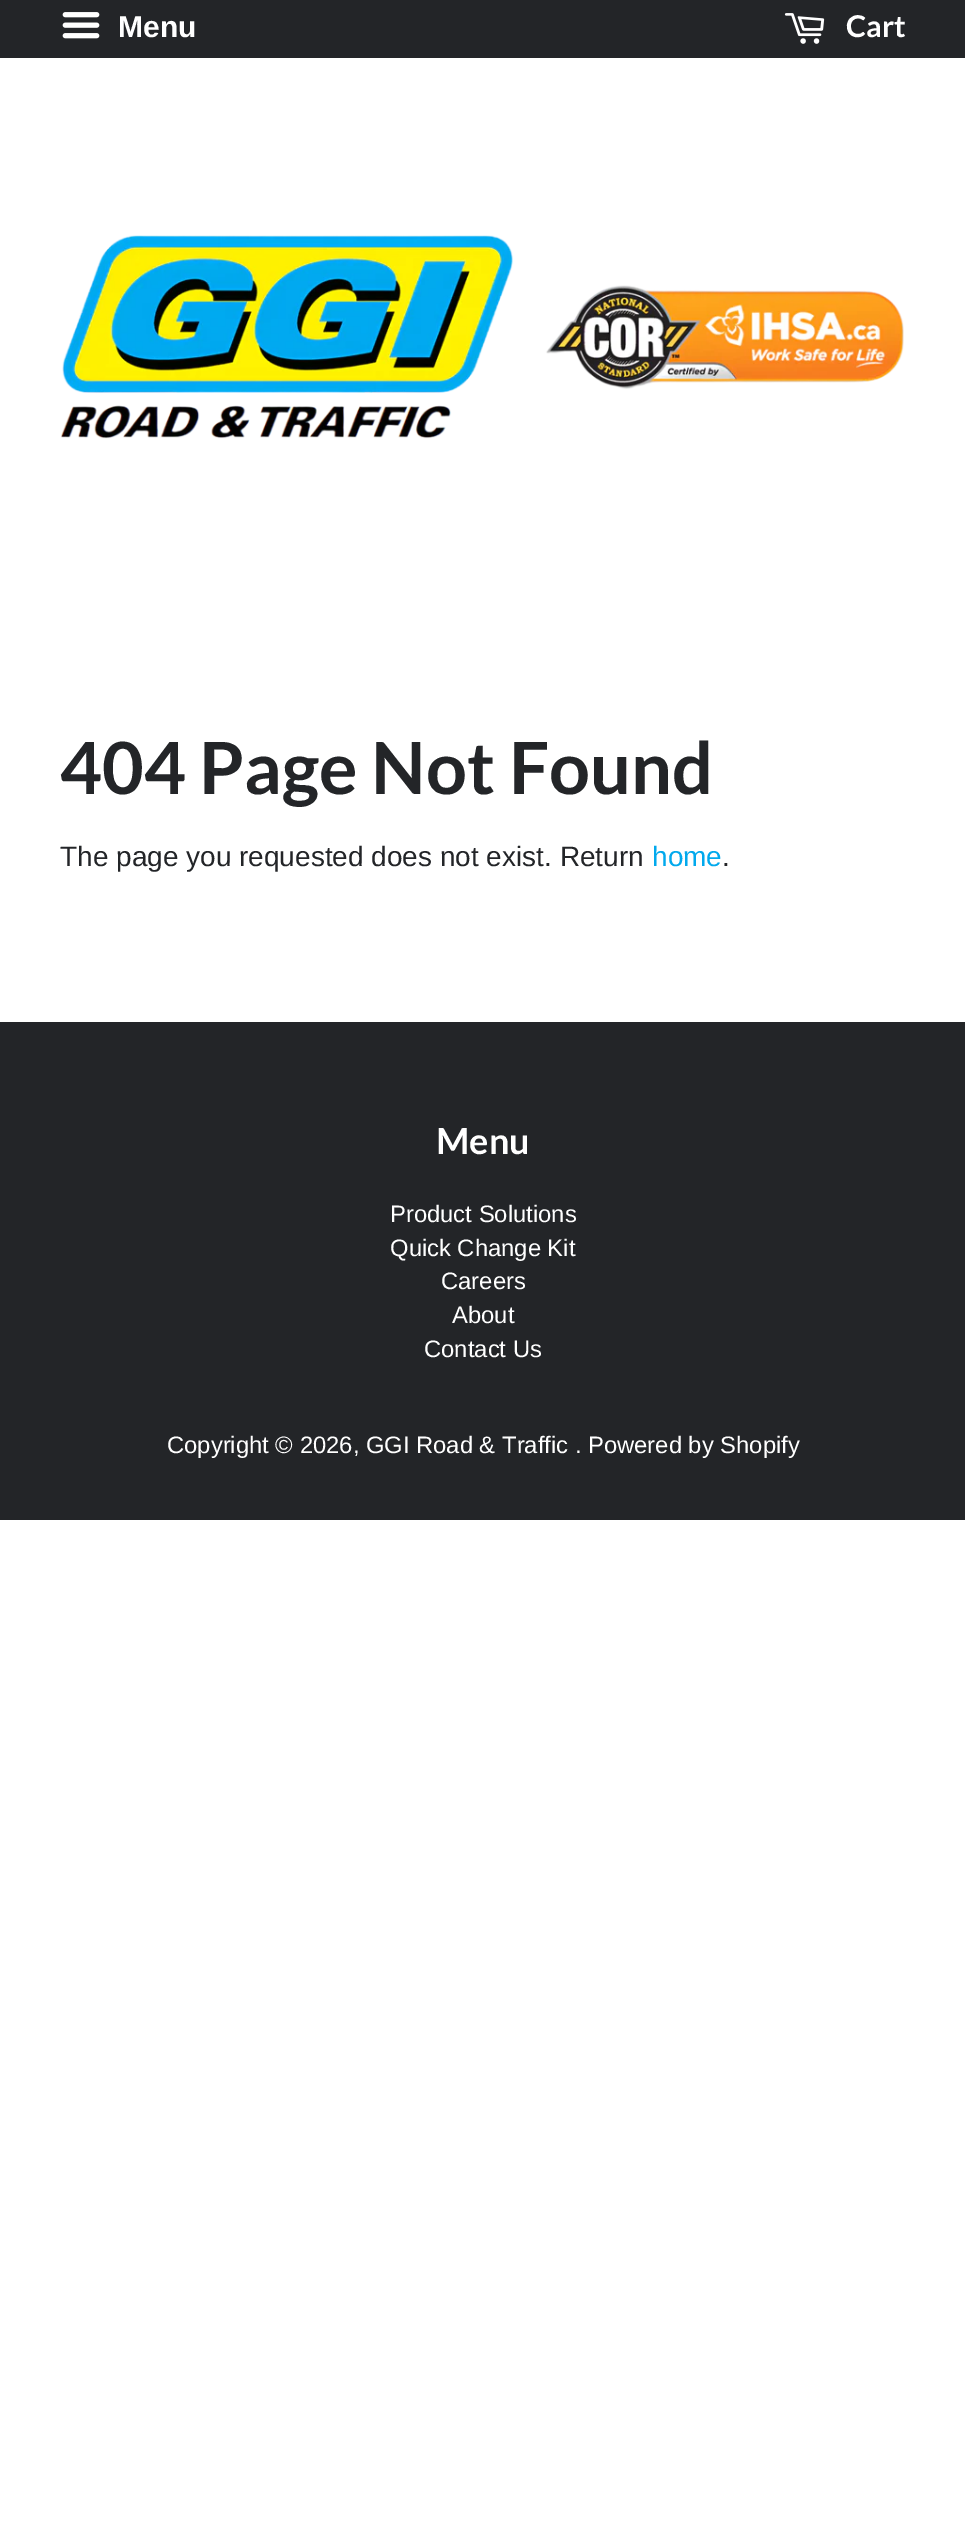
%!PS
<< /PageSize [965 2527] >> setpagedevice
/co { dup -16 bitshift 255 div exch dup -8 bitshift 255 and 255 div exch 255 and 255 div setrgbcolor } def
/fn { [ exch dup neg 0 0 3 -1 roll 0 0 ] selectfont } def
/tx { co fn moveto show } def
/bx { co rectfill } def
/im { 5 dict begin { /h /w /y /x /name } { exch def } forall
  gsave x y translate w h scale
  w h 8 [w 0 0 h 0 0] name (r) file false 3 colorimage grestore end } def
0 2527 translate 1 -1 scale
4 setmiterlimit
0 0 965 2527 16#FFFFFF bx
0 0 965 58 16#232528 bx
(media/1.raw) 62 12 38 27 im
(media/2.raw) 784 13 41 31 im
(media/3.raw) 61 235 843 204 im
0 1022 965 498 16#232528 bx
(Menu) 118 37 /LiberationSans-Bold 30 16#FFFFFF tx
(Cart) 846 37 /Lato-Bold 30 16#FFFFFF tx
(404 Page Not Found) 60 794 /Lato-Bold 72 16#232528 tx
(The page you requested does not exist. Return) 60 866 /LiberationSans-Regular 28 16#232528 tx
(home) 652 866 /LiberationSans-Regular 28 16#01A9ED tx
(.) 722 866 /LiberationSans-Regular 28 16#232528 tx
(Menu) 436 1154 /Lato-Bold 36 16#FFFFFF tx
(Product Solutions) 390 1222 /LiberationSans-Regular 23.8 16#FFFFFF tx
(Quick Change Kit) 390 1256 /LiberationSans-Regular 23.8 16#FFFFFF tx
(Careers) 441 1289 /LiberationSans-Regular 23.8 16#FFFFFF tx
(About) 452 1323 /LiberationSans-Regular 23.8 16#FFFFFF tx
(Contact Us) 424 1357 /LiberationSans-Regular 23.8 16#FFFFFF tx
(Copyright © 2026, GGI Road & Traffic . Powered by Shopify) 167 1453 /LiberationSans-Regular 23.8 16#FFFFFF tx
showpage
